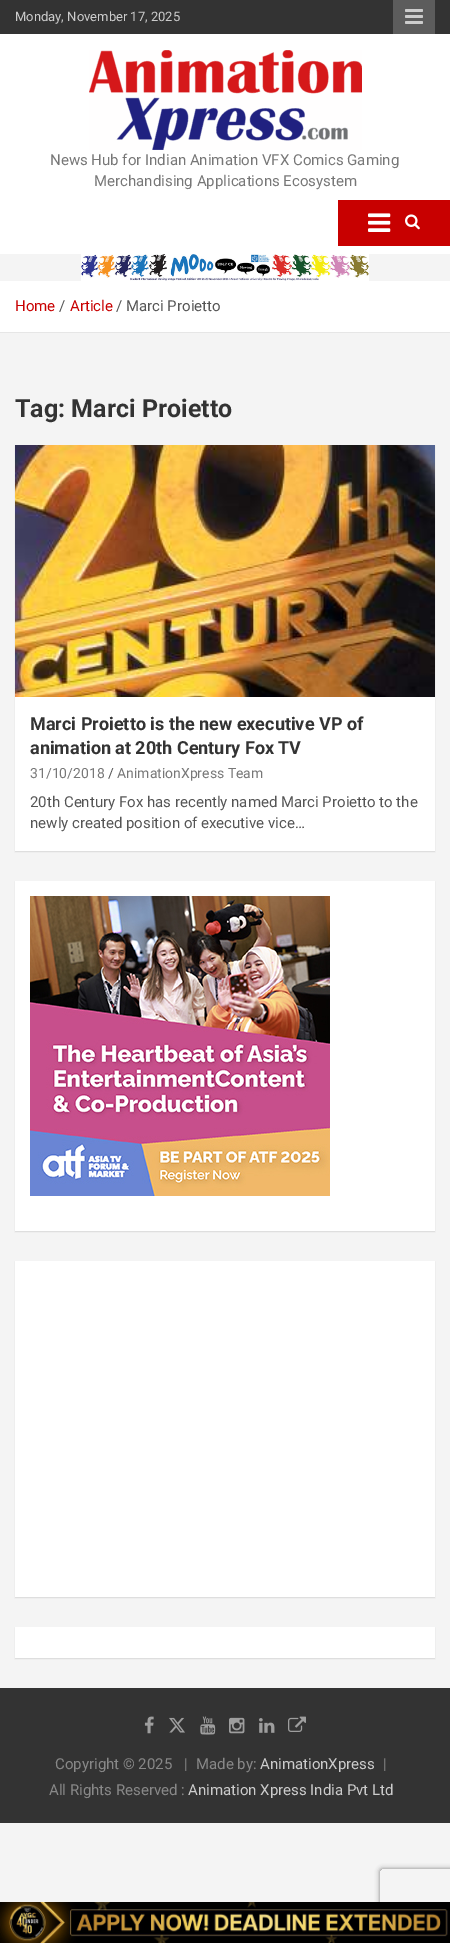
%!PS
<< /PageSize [450 1943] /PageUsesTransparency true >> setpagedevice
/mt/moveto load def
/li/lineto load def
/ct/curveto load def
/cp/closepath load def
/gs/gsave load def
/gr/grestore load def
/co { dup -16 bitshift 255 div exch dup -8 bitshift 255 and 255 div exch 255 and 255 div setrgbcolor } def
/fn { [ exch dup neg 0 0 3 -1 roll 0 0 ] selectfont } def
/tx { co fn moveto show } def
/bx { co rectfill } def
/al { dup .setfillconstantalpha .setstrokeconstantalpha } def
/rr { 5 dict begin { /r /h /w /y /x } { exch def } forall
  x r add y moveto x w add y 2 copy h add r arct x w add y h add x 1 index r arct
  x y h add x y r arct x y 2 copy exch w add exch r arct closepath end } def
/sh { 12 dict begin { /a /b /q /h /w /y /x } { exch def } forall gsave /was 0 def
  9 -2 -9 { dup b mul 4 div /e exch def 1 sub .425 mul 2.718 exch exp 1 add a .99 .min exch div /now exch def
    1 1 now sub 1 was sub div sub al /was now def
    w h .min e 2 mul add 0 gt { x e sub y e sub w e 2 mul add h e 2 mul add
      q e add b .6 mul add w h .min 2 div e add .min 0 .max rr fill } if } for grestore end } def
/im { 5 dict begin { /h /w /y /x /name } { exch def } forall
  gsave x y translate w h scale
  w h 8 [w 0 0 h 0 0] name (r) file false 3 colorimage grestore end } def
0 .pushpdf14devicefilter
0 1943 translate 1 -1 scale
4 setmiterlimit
0 0 450 1943 16#F4F4F4 bx
0 0 450 34 16#333333 bx
393 0 42 34 16#5C5C5C bx
(media/1.raw) 405 9 18 15 im
0 34 450 220 16#FFFFFF bx
(media/2.raw) 89 50 273 100 im
338 200 112 46 16#C80000 bx
(media/3.raw) 368 213 23 19 im
(media/4.raw) 405 214 15 16 im
(media/5.raw) 81 254 288 27 im
0 281 450 51 16#FFFFFF bx
0 332 450 1 16#E6E6E6 bx
16#000000 co
15 446 420 406 0 .5 .1 sh
15 697 420 154 16#FFFFFF bx
(media/6.raw) 15 445 420 252 im
16#000000 co
15 882 420 350 0 .5 .1 sh
15 881 420 350 16#FFFFFF bx
(media/7.raw) 30 896 300 300 im
16#000000 co
15 1262 420 336 0 .5 .1 sh
15 1261 420 336 16#FFFFFF bx
16#000000 co
15 1628 420 31 0 .5 .1 sh
15 1627 420 31 16#FFFFFF bx
0 1688 450 135 16#333333 bx
(media/8.raw) 144 1716 10 18 im
(media/9.raw) 169 1717 16 16 im
(media/10.raw) 200 1716 16 19 im
(media/11.raw) 229 1717 16 17 im
(media/12.raw) 259 1718 16 15 im
(media/13.raw) 288 1716 18 16 im
gs
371 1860 mt 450 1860 li 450 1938 li 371 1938 li cp 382 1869 mt 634 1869 li 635 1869 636 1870 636 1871 ct 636 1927 li 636 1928 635 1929 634 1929 ct 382 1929 li 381 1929 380 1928 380 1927 ct 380 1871 li 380 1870 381 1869 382 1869 ct cp eoclip newpath
16#808080 co
380 1869 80 60 2 2.5 1 sh
gr
(media/14.raw) 0 1902 450 41 im
(Monday, November 17, 2025) 15 21 /Roboto-Regular 13 16#CCCCCC tx
(News Hub for Indian Animation VFX Comics Gaming) 50 165 /Roboto-Regular 15 16#777777 tx
(Merchandising Applications Ecosystem) 94 186 /Roboto-Regular 15 16#777777 tx
(Home) 15 311 /Roboto-Regular 15 16#C80000 tx
(/) 59 311 /Roboto-Regular 15 16#555555 tx
(Article) 70 311 /Roboto-Regular 15 16#C80000 tx
(/ Marci Proietto) 116 311 /Roboto-Regular 15 16#555555 tx
(Tag: Marci Proietto) 15 417 /Roboto-Bold 25 16#333333 tx
(Marci Proietto is the new executive VP of) 30 730 /Roboto-Bold 18 16#333333 tx
(animation at 20th Century Fox TV) 30 754 /Roboto-Bold 18 16#333333 tx
(31/10/2018) 30 778 /Roboto-Regular 14 16#777777 tx
(/) 108 778 /Roboto-Regular 14 16#555555 tx
(AnimationXpress Team) 117 778 /Roboto-Regular 14 16#777777 tx
(20th Century Fox has recently named Marci Proietto to the) 30 807 /Roboto-Regular 15 16#555555 tx
(newly created position of executive vice…) 30 828 /Roboto-Regular 15 16#555555 tx
(Copyright © 2025) 55 1769 /Roboto-Regular 15 16#888888 tx
(|) 184 1769 /Roboto-Regular 15 16#888888 tx
(Made by:) 196 1769 /Roboto-Regular 15 16#888888 tx
(AnimationXpress) 260 1769 /Roboto-Regular 15 16#CCCCCC tx
(|) 383 1769 /Roboto-Regular 15 16#888888 tx
(All Rights Reserved :) 49 1795 /Roboto-Regular 15 16#888888 tx
(Animation Xpress India Pvt Ltd) 188 1795 /Roboto-Regular 15 16#CCCCCC tx
.poppdf14devicefilter showpage
